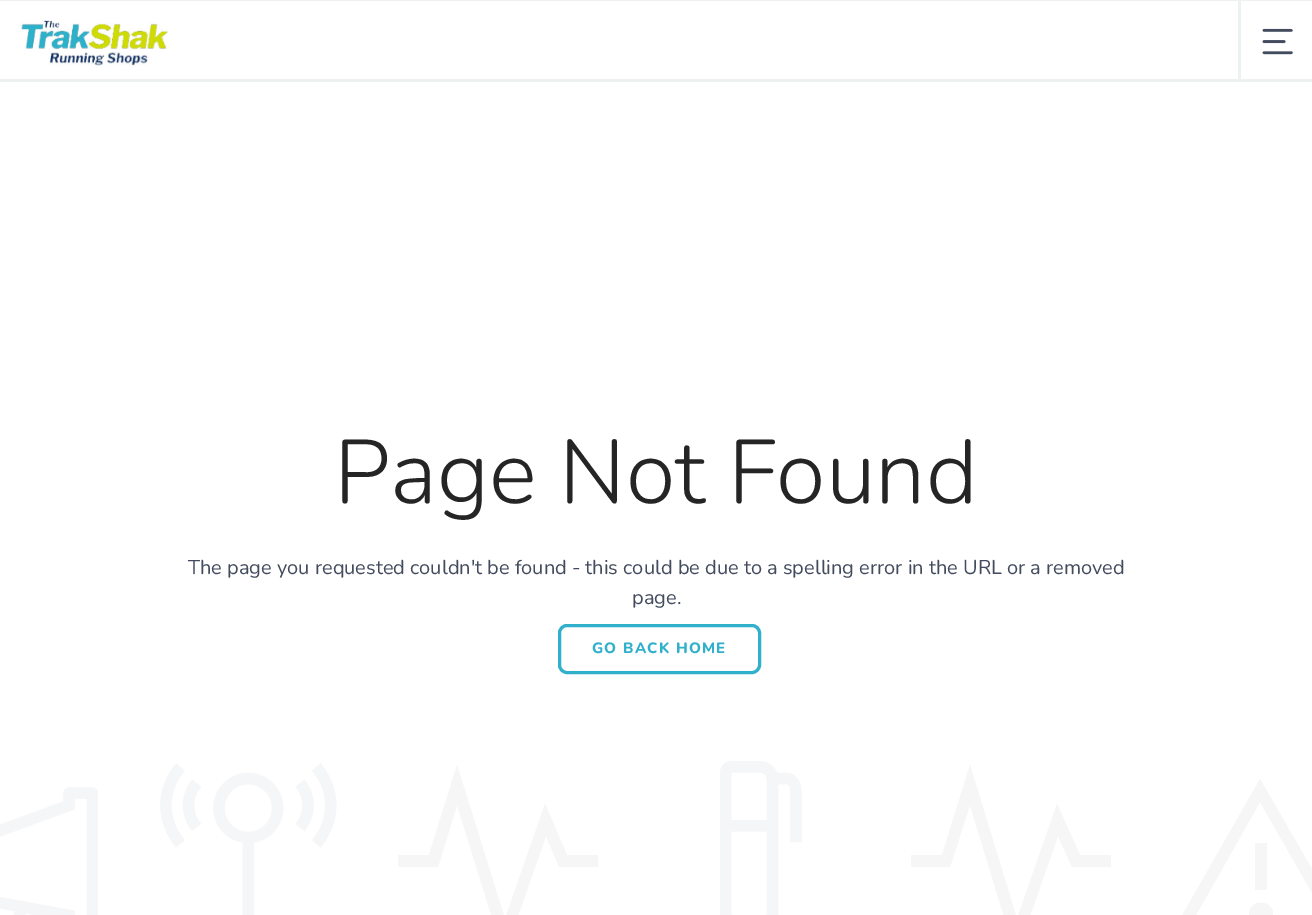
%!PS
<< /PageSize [1312 915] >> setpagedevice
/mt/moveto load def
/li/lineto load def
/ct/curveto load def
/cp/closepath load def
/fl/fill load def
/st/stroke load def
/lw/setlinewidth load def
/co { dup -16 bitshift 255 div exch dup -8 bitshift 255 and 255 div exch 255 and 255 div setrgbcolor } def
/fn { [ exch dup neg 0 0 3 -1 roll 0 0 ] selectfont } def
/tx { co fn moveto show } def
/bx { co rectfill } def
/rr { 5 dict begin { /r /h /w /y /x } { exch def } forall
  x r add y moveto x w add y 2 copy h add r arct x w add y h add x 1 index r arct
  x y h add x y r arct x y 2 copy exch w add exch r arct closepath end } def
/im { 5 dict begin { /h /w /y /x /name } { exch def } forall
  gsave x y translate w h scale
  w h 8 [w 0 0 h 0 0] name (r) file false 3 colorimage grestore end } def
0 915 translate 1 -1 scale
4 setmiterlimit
0 0 1312 915 16#FFFFFF bx
0 0 1312 1 16#EEF1F2 bx
0 79 1312 3 16#EEF1F2 bx
(media/1.raw) 20 20 149 46 im
1238 1 3 78 16#EEF1F2 bx
(media/2.raw) 1262 28 31 27 im
16#30B0CA co
3 lw
559.5 625.5 200 47 7.5 rr st
(media/3.raw) 0 787 98 128 im
(media/4.raw) 160 763 177 152 im
16#F6F6F7 co
567 855 mt 545 804 li 505 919 li 457 765 li 429 855 li 398 855 li 398 867 li 438 867 li 457 805 li 504 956 li 546 836 li 559 867 li 598 867 li 598 855 li cp fl
(media/5.raw) 720 761 82 154 im
1080 855 mt 1057 804 li 1017 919 li 970 765 li 942 855 li 911 855 li 911 867 li 950 867 li 970 805 li 1016 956 li 1058 836 li 1072 867 li 1111 867 li 1111 855 li cp fl
1260 779 mt 1163 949 li 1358 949 li cp 1260 802 mt 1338 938 li 1183 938 li cp 1267 890 mt 1255 890 li 1255 843 li 1267 843 li cp 1273 914 mt 1273 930 1249 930 1249 914 ct 1249 899 1273 899 1273 914 ct cp fl
(Page Not Found) 334 503 /Nunito-Light 90 16#252525 tx
(The page you requested couldn't be found - this could be due to a spelling error in the URL or a removed) 188 574 /Nunito-Regular 20 16#434C5E tx
(page.) 632 604 /Nunito-Regular 20 16#434C5E tx
/Nunito-ExtraBold 15 fn
16#30B0CA co
592 653 mt 1.25 0 (GO BACK HOME) ashow
showpage
